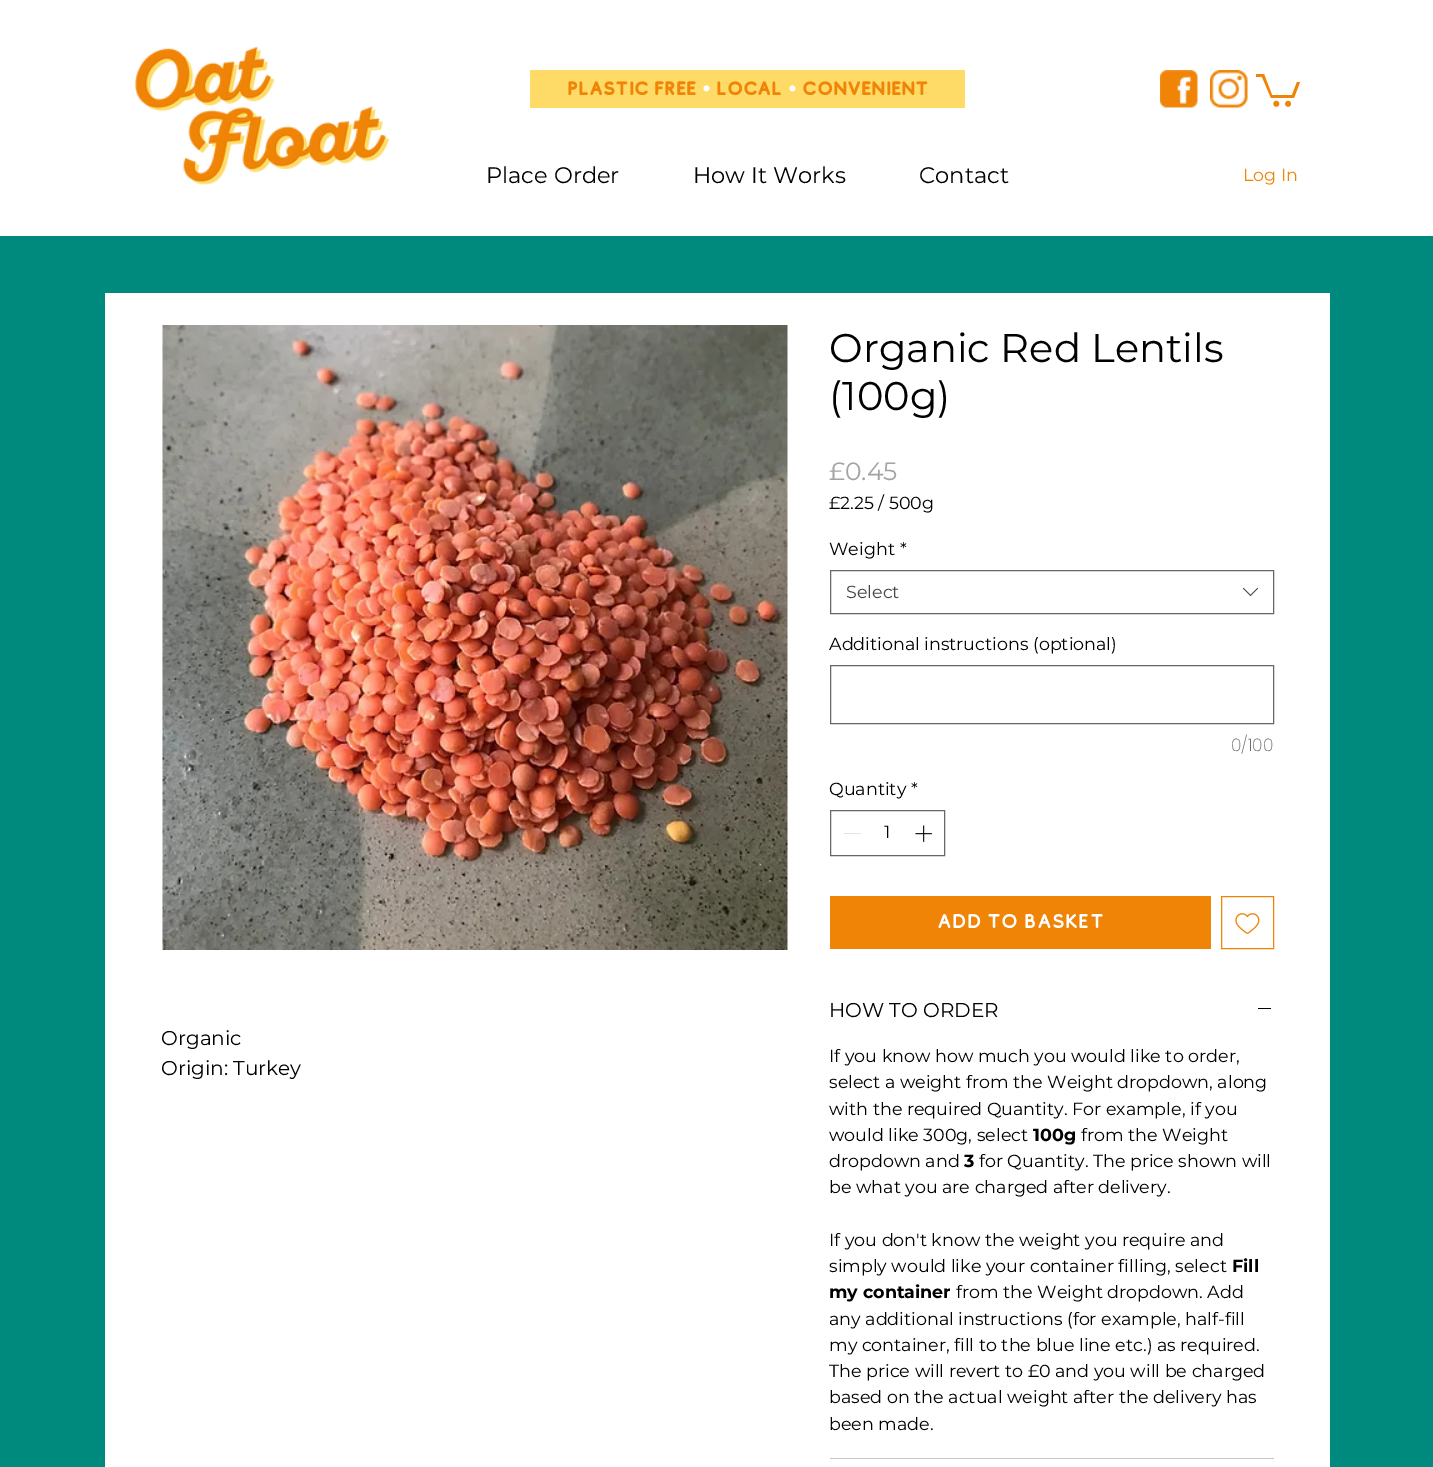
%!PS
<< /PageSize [1433 1467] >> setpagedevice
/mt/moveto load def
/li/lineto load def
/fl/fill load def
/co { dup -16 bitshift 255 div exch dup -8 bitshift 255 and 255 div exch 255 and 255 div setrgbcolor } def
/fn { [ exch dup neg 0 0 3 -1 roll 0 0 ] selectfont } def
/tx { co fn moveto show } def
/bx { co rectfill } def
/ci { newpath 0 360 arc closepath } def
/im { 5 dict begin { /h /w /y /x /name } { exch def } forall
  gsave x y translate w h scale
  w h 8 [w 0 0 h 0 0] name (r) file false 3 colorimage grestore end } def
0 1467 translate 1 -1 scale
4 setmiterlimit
0 0 1433 1467 16#00897D bx
0 0 1433 236 16#FFFFFF bx
(media/1.raw) 134 46 256 140 im
530 70 435 38 16#FEDB67 bx
(media/2.raw) 1160 70 38 38 im
(media/3.raw) 1210 70 38 38 im
16#F08406 co
1300 82 mt 1294 98 li 1271 98 li 1262 77 li 1256 77 li 1256 74 li 1264 74 li 1272 95 li 1292 95 li 1297 82 li fl
1288.1 103.8 2.9 ci fl
1276.3 103.8 2.9 ci fl
105 293 1225 1174 16#FFFFFF bx
(media/4.raw) 162 325 626 625 im
16#666666 co
830.5 570.5 443 43 rectstroke
(media/5.raw) 1242 587 17 10 im
830.5 665.5 443 58 rectstroke
830.5 810.5 114 45 rectstroke
844 833 17 1 16#E3E3E3 bx
(media/6.raw) 915 825 17 17 im
830 896 381 53 16#F08406 bx
1221.5 896.5 52 52 rectstroke
(media/7.raw) 1235 913 25 21 im
830 1458 444 1 16#C7C7C7 bx
1258 1008 13 1 16#000000 bx
(PLASTIC FREE) 567 95 /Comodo-Bold 18.75 16#F08406 tx
(•) 702 95 /Comodo-Bold 18.75 16#FFFFFF tx
(LOCAL) 716 95 /Comodo-Bold 18.75 16#F08406 tx
(•) 788 95 /Comodo-Bold 18.75 16#FFFFFF tx
(CONVENIENT) 802 95 /Comodo-Bold 18.75 16#F08406 tx
(Place Order) 486 183 /Montserrat-Regular 22.5 16#000000 tx
(How It Works) 693 183 /Montserrat-Regular 22.5 16#000000 tx
(Contact) 919 183 /Montserrat-Regular 22.5 16#000000 tx
(Log In) 1243 181 /Montserrat-Regular 17.5 16#F08406 tx
(Organic) 161 1045 /Montserrat-Regular 20 16#000000 tx
(Origin: Turkey) 161 1075 /Montserrat-Regular 20 16#000000 tx
(Organic Red Lentils) 829 362 /Montserrat-Regular 40 16#000000 tx
(\(100g\)) 829 410 /Montserrat-Regular 40 16#000000 tx
(£0.45) 829 480 /Montserrat-Regular 25 16#A4A3A3 tx
(£2.25 / 500g) 829 509 /Montserrat-Regular 17.5 16#000000 tx
(Weight) 829 555 /Montserrat-Regular 17.5 16#000000 tx
(*) 900 555 /Montserrat-Regular 17.5 16#000000 tx
(Select) 846 598 /Montserrat-Regular 17.5 16#444444 tx
(Additional instructions \(optional\)) 829 650 /Montserrat-Regular 17.5 16#000000 tx
(0/100) 1231 751 /Poppins-ExtraLight 17.5 16#6B6B6B tx
(Quantity) 829 795 /Montserrat-Regular 17.5 16#000000 tx
(*) 911 795 /Montserrat-Regular 17.5 16#000000 tx
(1) 884 838 /Montserrat-Regular 17.5 16#000000 tx
(Add to Basket) 937 928 /Comodo-Regular 20 16#FFFFFF tx
(HOW TO ORDER) 829 1017 /Montserrat-Regular 20 16#000000 tx
(If you know how much you would like to order,) 829 1062 /Montserrat-Regular 17.5 16#000000 tx
(select a weight from the Weight dropdown, along) 829 1088 /Montserrat-Regular 17.5 16#000000 tx
(with the required Quantity. For example, if you) 829 1115 /Montserrat-Regular 17.5 16#000000 tx
(would like 300g, select) 829 1141 /Montserrat-Regular 17.5 16#000000 tx
(100g) 1033 1141 /Montserrat-Bold 17.5 16#000000 tx
(from the Weight) 1081 1141 /Montserrat-Regular 17.5 16#000000 tx
(dropdown and) 829 1167 /Montserrat-Regular 17.5 16#000000 tx
(3) 964 1167 /Montserrat-Bold 17.5 16#000000 tx
(for Quantity. The price shown will) 979 1167 /Montserrat-Regular 17.5 16#000000 tx
(be what you are charged after delivery.) 829 1193 /Montserrat-Regular 17.5 16#000000 tx
(If you don't know the weight you require and) 829 1246 /Montserrat-Regular 17.5 16#000000 tx
(simply would like your container filling, select) 829 1272 /Montserrat-Regular 17.5 16#000000 tx
(Fill) 1232 1272 /Montserrat-Bold 17.5 16#000000 tx
(my container) 829 1298 /Montserrat-Bold 17.5 16#000000 tx
(from the Weight dropdown. Add) 956 1298 /Montserrat-Regular 17.5 16#000000 tx
(any additional instructions \(for example, half-fill) 829 1325 /Montserrat-Regular 17.5 16#000000 tx
(my container, fill to the blue line etc.\) as required.) 829 1351 /Montserrat-Regular 17.5 16#000000 tx
(The price will revert to £0 and you will be charged) 829 1377 /Montserrat-Regular 17.5 16#000000 tx
(based on the actual weight after the delivery has) 829 1403 /Montserrat-Regular 17.5 16#000000 tx
(been made.) 829 1430 /Montserrat-Regular 17.5 16#000000 tx
showpage
